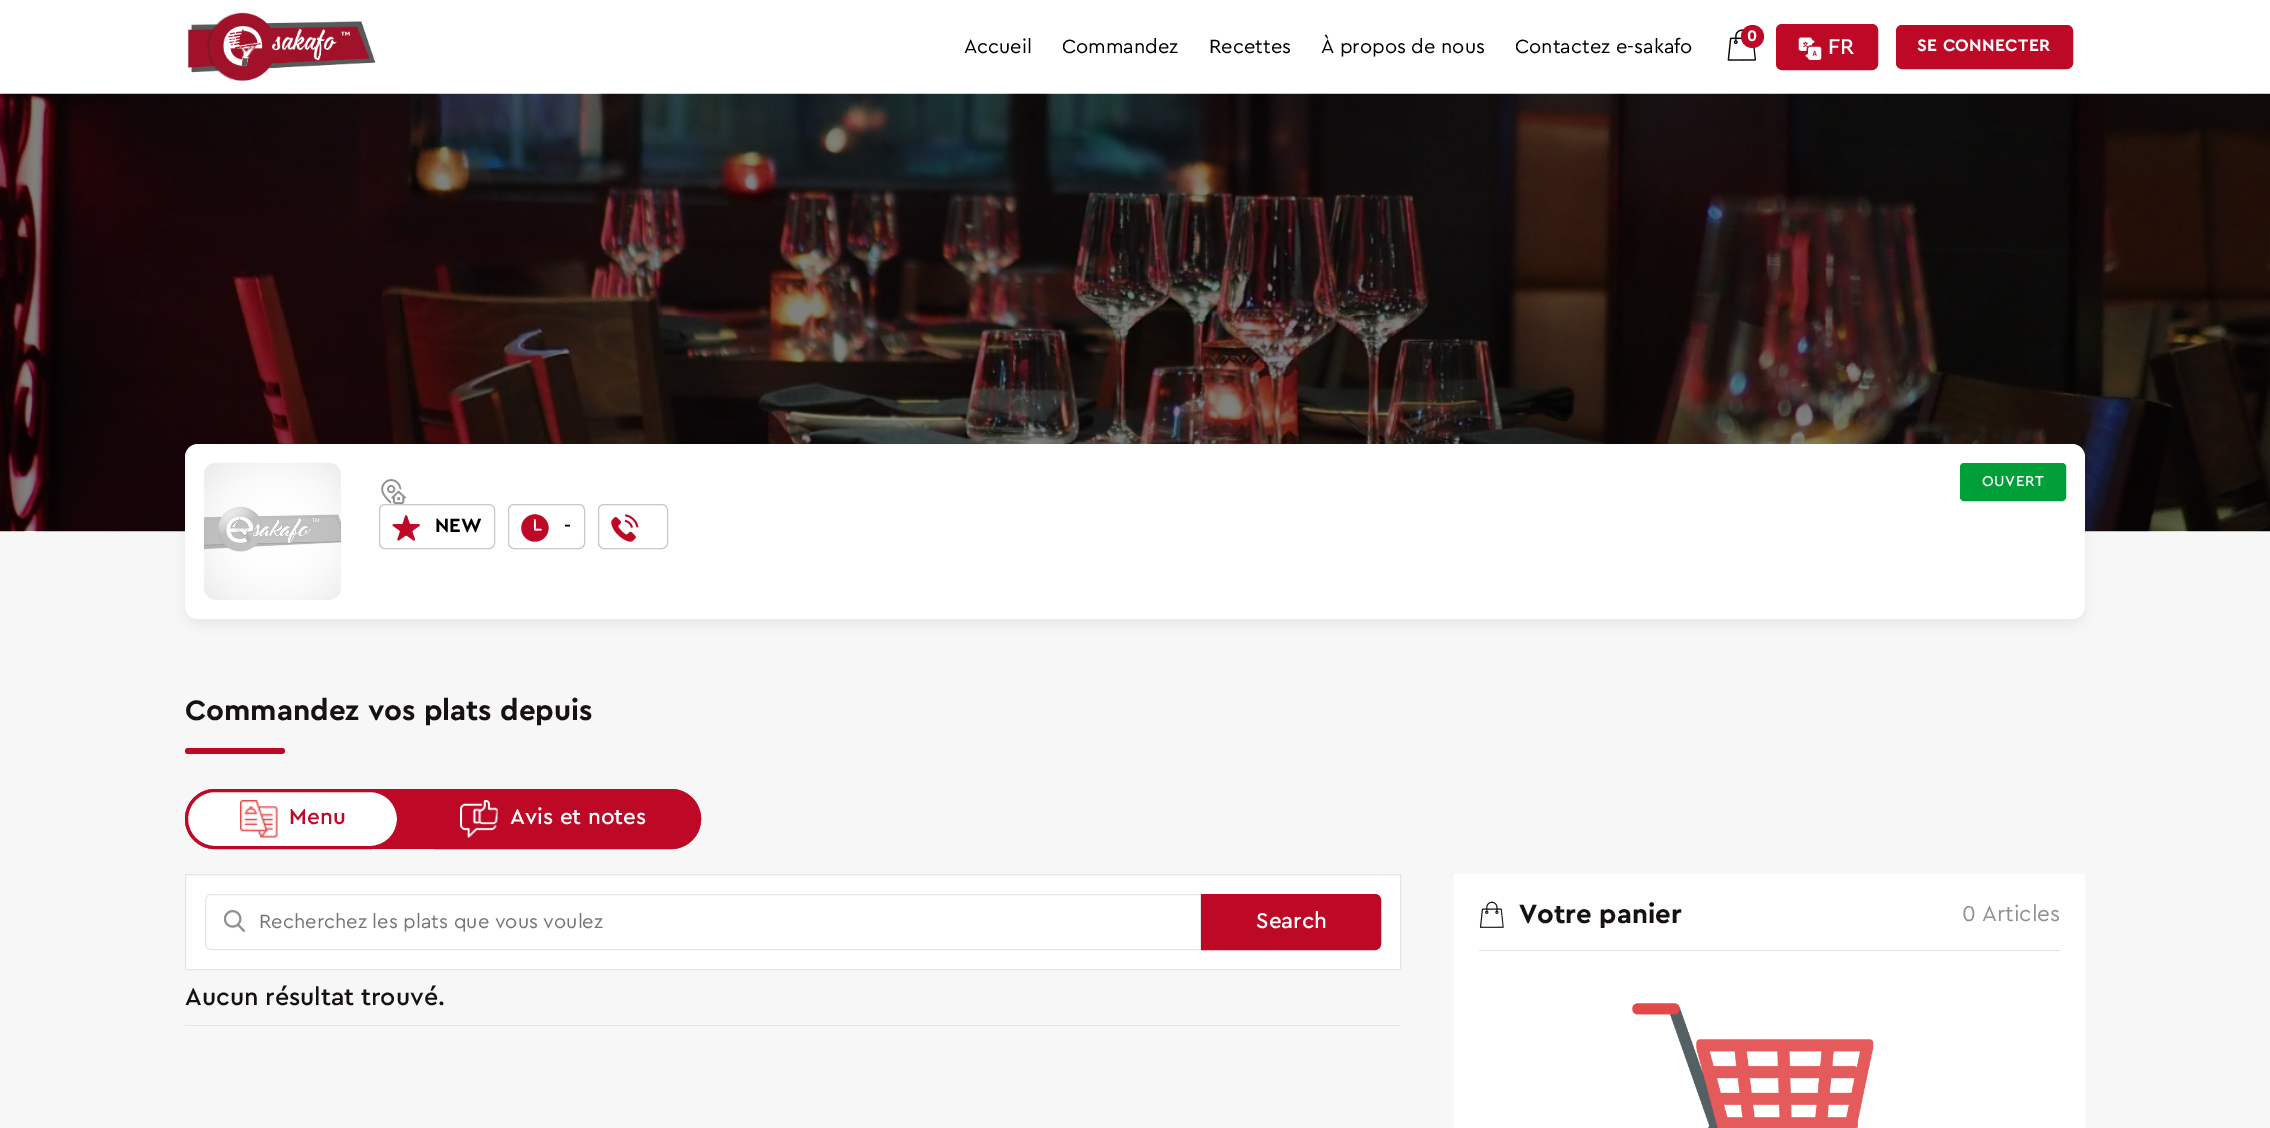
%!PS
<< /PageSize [2270 1128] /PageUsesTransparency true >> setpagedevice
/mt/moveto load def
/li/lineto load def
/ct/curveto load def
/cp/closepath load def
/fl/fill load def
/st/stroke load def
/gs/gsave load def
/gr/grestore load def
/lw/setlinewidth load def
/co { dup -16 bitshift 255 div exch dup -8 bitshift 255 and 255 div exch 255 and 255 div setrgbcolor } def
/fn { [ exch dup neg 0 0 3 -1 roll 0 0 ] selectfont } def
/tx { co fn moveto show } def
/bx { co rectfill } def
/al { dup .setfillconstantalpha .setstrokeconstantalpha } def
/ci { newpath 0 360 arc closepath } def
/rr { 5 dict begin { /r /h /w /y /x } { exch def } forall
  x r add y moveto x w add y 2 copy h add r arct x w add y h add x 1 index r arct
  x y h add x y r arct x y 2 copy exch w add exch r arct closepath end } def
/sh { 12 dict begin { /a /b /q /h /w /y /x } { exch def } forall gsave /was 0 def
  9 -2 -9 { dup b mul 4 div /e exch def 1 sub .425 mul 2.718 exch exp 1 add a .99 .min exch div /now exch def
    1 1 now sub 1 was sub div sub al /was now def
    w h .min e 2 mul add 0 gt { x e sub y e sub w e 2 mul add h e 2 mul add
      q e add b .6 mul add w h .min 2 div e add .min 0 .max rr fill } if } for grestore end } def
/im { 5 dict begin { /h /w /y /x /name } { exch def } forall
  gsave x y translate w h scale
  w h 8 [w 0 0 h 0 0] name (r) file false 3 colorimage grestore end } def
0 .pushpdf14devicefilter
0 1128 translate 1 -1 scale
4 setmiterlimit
0 0 2270 1128 16#FFFFFF bx
(media/1.raw) 188 12 188 70 im
(media/2.raw) 1727 29 29 32 im
16#BD0926 co
1752.5 36.5 11.5 ci fl
1777.5 25.5 99 43 4.5 rr gs fl gr
3 lw
st
(media/3.raw) 1798 37 24 23 im
1897.5 26.5 174 41 4.5 rr gs fl gr
st
0 531 2270 597 16#F7F7F7 bx
(media/4.raw) 0 93 2270 439 im
16#000000 co
185 450 1900 175 13 6 .05 sh
16#FFFFFF co
185 444 1900 175 13 rr fl
(media/5.raw) 203 462 139 138 im
(media/6.raw) 381 479 26 25 im
16#009F3A co
1961.5 464.5 103 35 2.5 rr gs fl gr
st
16#C8C8C8 co
1 lw
379.5 504.5 115 44 5.5 rr st
(media/7.raw) 392 515 28 26 im
508.5 504.5 76 44 5.5 rr st
(media/8.raw) 521 514 28 28 im
598.5 504.5 69 44 5.5 rr st
(media/9.raw) 611 514 28 28 im
16#BD0926 co
185 748 100 6 3 rr fl
185 789 516 60 30 rr fl
16#FFFFFF co
186.5 790.5 212 57 28.5 rr gs fl gr
16#BD0926 co
3 lw
st
(media/10.raw) 240 800 38 38 im
407.5 790.5 292 57 28.5 rr gs fl gr
st
(media/11.raw) 460 800 38 38 im
16#FFFFFF co
185.5 874.5 mt 1400.5 874.5 li 1400.5 969.5 li 185.5 969.5 li cp gs fl gr
16#E5E5E5 co
1 lw
st
(media/12.raw) 224 910 21 22 im
211 894.5 mt 1200.5 894.5 li 1200.5 949.5 li 211 949.5 li 208 949.5 205.5 947 205.5 944 ct 205.5 900 li 205.5 897 208 894.5 211 894.5 ct cp st
16#BD0926 co
1202.5 895.5 mt 1375 895.5 li 1377.5 895.5 1379.5 897.5 1379.5 900 ct 1379.5 944 li 1379.5 946.5 1377.5 948.5 1375 948.5 ct 1202.5 948.5 li cp gs fl gr
3 lw
st
185 1025 1216 1 16#E4E4E4 bx
1454 874 631 254 16#FFFFFF bx
1479 950 581 1 16#E4E4E4 bx
(media/13.raw) 1479 901 25 27 im
(media/14.raw) 1632 1003 242 125 im
(Accueil) 964 53 /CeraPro-Regular 20 16#000000 tx
(Commandez) 1062 53 /CeraPro-Regular 20 16#000000 tx
(Recettes) 1209 53 /CeraPro-Regular 20 16#000000 tx
(À propos de nous) 1321 53 /CeraPro-Regular 20 16#000000 tx
(Contactez e-sakafo) 1515 53 /CeraPro-Regular 20 16#000000 tx
(0) 1747 41 /CeraPro-Bold 16 16#FFFFFF tx
(FR) 1828 54 /CeraPro-Medium 22.5 16#FFFFFF tx
/CeraPro-Bold 17.5 fn
1917 51 mt .3 0 (SE CONNECTER) ashow
/CeraPro-Medium 15 fn
1982 486 mt .5 0 (OUVERT) ashow
(NEW) 435 532 /CeraPro-Bold 20 16#000000 tx
(-) 564 532 /CeraPro-Medium 20 16#000000 tx
(Commandez vos plats depuis) 185 720 /CeraPro-Bold 29.5 16#161212 tx
(Menu) 289 824 /CeraPro-Medium 22.5 16#BD0926 tx
(Avis et notes) 510 824 /CeraPro-Medium 22.5 16#FFFFFF tx
(Recherchez les plats que vous voulez) 259 928 /CeraPro-Regular 20 16#757575 tx
(Search) 1256 928 /CeraPro-Medium 22.5 16#FFFFFF tx
(Aucun résultat trouvé.) 185 1005 /CeraPro-Medium 25 16#161212 tx
(Votre panier) 1519 923 /CeraPro-Bold 27.5 16#161212 tx
(0 Articles) 1962 921 /CeraPro-Regular 22.5 16#919191 tx
.poppdf14devicefilter showpage
